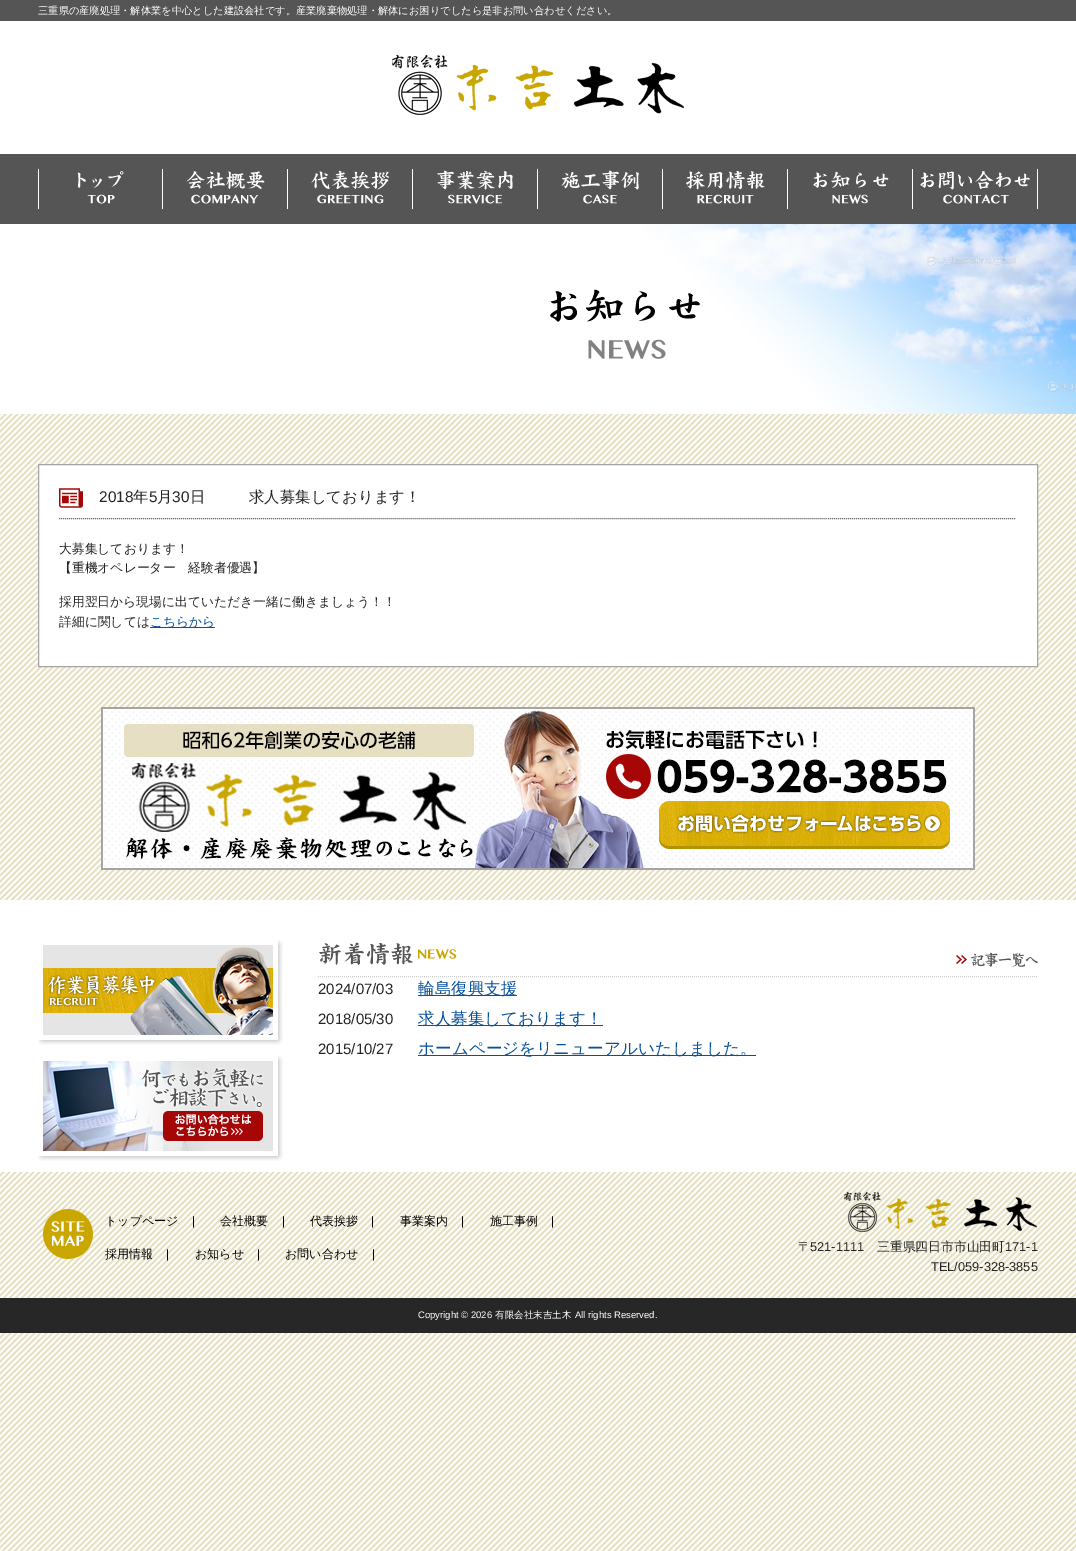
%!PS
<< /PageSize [1076 1551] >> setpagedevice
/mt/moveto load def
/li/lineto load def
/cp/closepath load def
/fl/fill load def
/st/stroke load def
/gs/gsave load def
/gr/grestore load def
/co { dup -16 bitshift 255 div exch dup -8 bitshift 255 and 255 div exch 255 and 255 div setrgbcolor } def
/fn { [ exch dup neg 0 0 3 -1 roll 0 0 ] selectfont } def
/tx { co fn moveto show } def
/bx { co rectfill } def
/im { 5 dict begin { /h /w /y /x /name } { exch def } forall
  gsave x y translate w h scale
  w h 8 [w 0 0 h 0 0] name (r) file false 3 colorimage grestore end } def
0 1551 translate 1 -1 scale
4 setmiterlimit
0 0 1076 1551 16#FFFFFF bx
(media/1.raw) 0 414 1076 1137 im
0 0 1076 21 16#555555 bx
(media/2.raw) 392 55 292 60 im
0 154 1076 70 16#555555 bx
(media/3.raw) 38 169 125 40 im
(media/4.raw) 186 169 102 40 im
(media/5.raw) 311 169 102 40 im
(media/6.raw) 437 169 101 40 im
(media/7.raw) 561 169 102 40 im
(media/8.raw) 686 169 102 40 im
(media/9.raw) 813 169 100 40 im
(media/10.raw) 920 169 118 40 im
(media/11.raw) 550 224 526 190 im
16#FFFFFF co
38.5 464.5 mt 1037.5 464.5 li 1037.5 666.5 li 38.5 666.5 li cp gs fl gr
16#A5A5A5 co
st
(media/12.raw) 59 488 24 20 im
16#6D6D6D co
[1 1] 0 setdash
59 518.5 mt 1017 518.5 li st
150 627 65 1 16#085099 bx
(media/13.raw) 101 707 874 163 im
(media/14.raw) 659 801 291 48 im
0 900 1076 272 16#FFFFFF bx
(media/15.raw) 38 940 245 105 im
(media/16.raw) 38 1056 245 105 im
16#CCCCCC co
318 976.5 mt 1038 976.5 li st
(media/17.raw) 319 942 138 23 im
(media/18.raw) 956 952 82 15 im
418 995 99 1 16#085099 bx
418 1025 185 1 16#085099 bx
418 1055 338 1 16#085099 bx
(media/19.raw) 43 1209 50 50 im
(media/20.raw) 844 1192 193 40 im
0 1298 1076 35 16#272727 bx
(三重県の産廃処理・解体業を中心とした建設会社です。産業廃棄物処理・解体にお困りでしたら是非お問い合わせください。) 38 14 /WenQuanYiZenHei-Medium 10.25 16#FFFFFF tx
(2018) 99 502 /LiberationSans-Regular 15.4 16#252525 tx
(年) 133 502 /WenQuanYiZenHei-Medium 15.4 16#252525 tx
(5) 149 502 /LiberationSans-Regular 15.4 16#252525 tx
(月) 157 502 /WenQuanYiZenHei-Medium 15.4 16#252525 tx
(30) 172 502 /LiberationSans-Regular 15.4 16#252525 tx
(日) 190 502 /WenQuanYiZenHei-Medium 15.4 16#252525 tx
(求人募集しております！) 249 502 /WenQuanYiZenHei-Medium 15.4 16#252525 tx
(大募集しております！) 59 553 /WenQuanYiZenHei-Medium 12.8 16#252525 tx
(【重機オペレーター　経験者優遇】) 59 572 /WenQuanYiZenHei-Medium 12.8 16#252525 tx
(採用翌日から現場に出ていただき一緒に働きましょう！！) 59 606 /WenQuanYiZenHei-Medium 12.8 16#252525 tx
(詳細に関しては) 59 626 /WenQuanYiZenHei-Medium 12.8 16#252525 tx
(こちらから) 150 626 /WenQuanYiZenHei-Medium 12.8 16#085099 tx
(2024/07/03) 318 994 /LiberationSans-Regular 15 16#252525 tx
(輪島復興支援) 418 994 /WenQuanYiZenHei-Medium 16.6 16#085099 tx
(2018/05/30) 318 1024 /LiberationSans-Regular 15 16#252525 tx
(求人募集しております！) 418 1024 /WenQuanYiZenHei-Medium 16.6 16#085099 tx
(2015/10/27) 318 1054 /LiberationSans-Regular 15 16#252525 tx
(ホームページをリニューアルいたしました。) 418 1054 /WenQuanYiZenHei-Medium 16.6 16#085099 tx
(トップページ) 105 1225 /WenQuanYiZenHei-Medium 12 16#000000 tx
(|) 192 1225 /LiberationSans-Regular 12 16#000000 tx
(会社概要) 220 1225 /WenQuanYiZenHei-Medium 12 16#000000 tx
(|) 282 1225 /LiberationSans-Regular 12 16#000000 tx
(代表挨拶) 310 1225 /WenQuanYiZenHei-Medium 12 16#000000 tx
(|) 371 1225 /LiberationSans-Regular 12 16#000000 tx
(事業案内) 400 1225 /WenQuanYiZenHei-Medium 12 16#000000 tx
(|) 461 1225 /LiberationSans-Regular 12 16#000000 tx
(施工事例) 490 1225 /WenQuanYiZenHei-Medium 12 16#000000 tx
(|) 551 1225 /LiberationSans-Regular 12 16#000000 tx
(採用情報) 105 1258 /WenQuanYiZenHei-Medium 12 16#000000 tx
(|) 166 1258 /LiberationSans-Regular 12 16#000000 tx
(お知らせ) 195 1258 /WenQuanYiZenHei-Medium 12 16#000000 tx
(|) 257 1258 /LiberationSans-Regular 12 16#000000 tx
(お問い合わせ) 285 1258 /WenQuanYiZenHei-Medium 12 16#000000 tx
(|) 372 1258 /LiberationSans-Regular 12 16#000000 tx
(〒) 798 1251 /WenQuanYiZenHei-Medium 12.8 16#252525 tx
(521-1111) 810 1251 /LiberationSans-Regular 12.8 16#252525 tx
(三重県四日市市山田町) 877 1251 /WenQuanYiZenHei-Medium 12.8 16#252525 tx
(171-1) 1005 1251 /LiberationSans-Regular 12.8 16#252525 tx
(TEL/059-328-3855) 931 1271 /LiberationSans-Regular 12.8 16#252525 tx
(Copyright © 2026) 418 1318 /LiberationSans-Regular 9.5 16#FFFFFF tx
(有限会社末吉土木) 495 1318 /WenQuanYiZenHei-Medium 9.5 16#FFFFFF tx
(All rights Reserved.) 575 1318 /LiberationSans-Regular 9.5 16#FFFFFF tx
showpage
